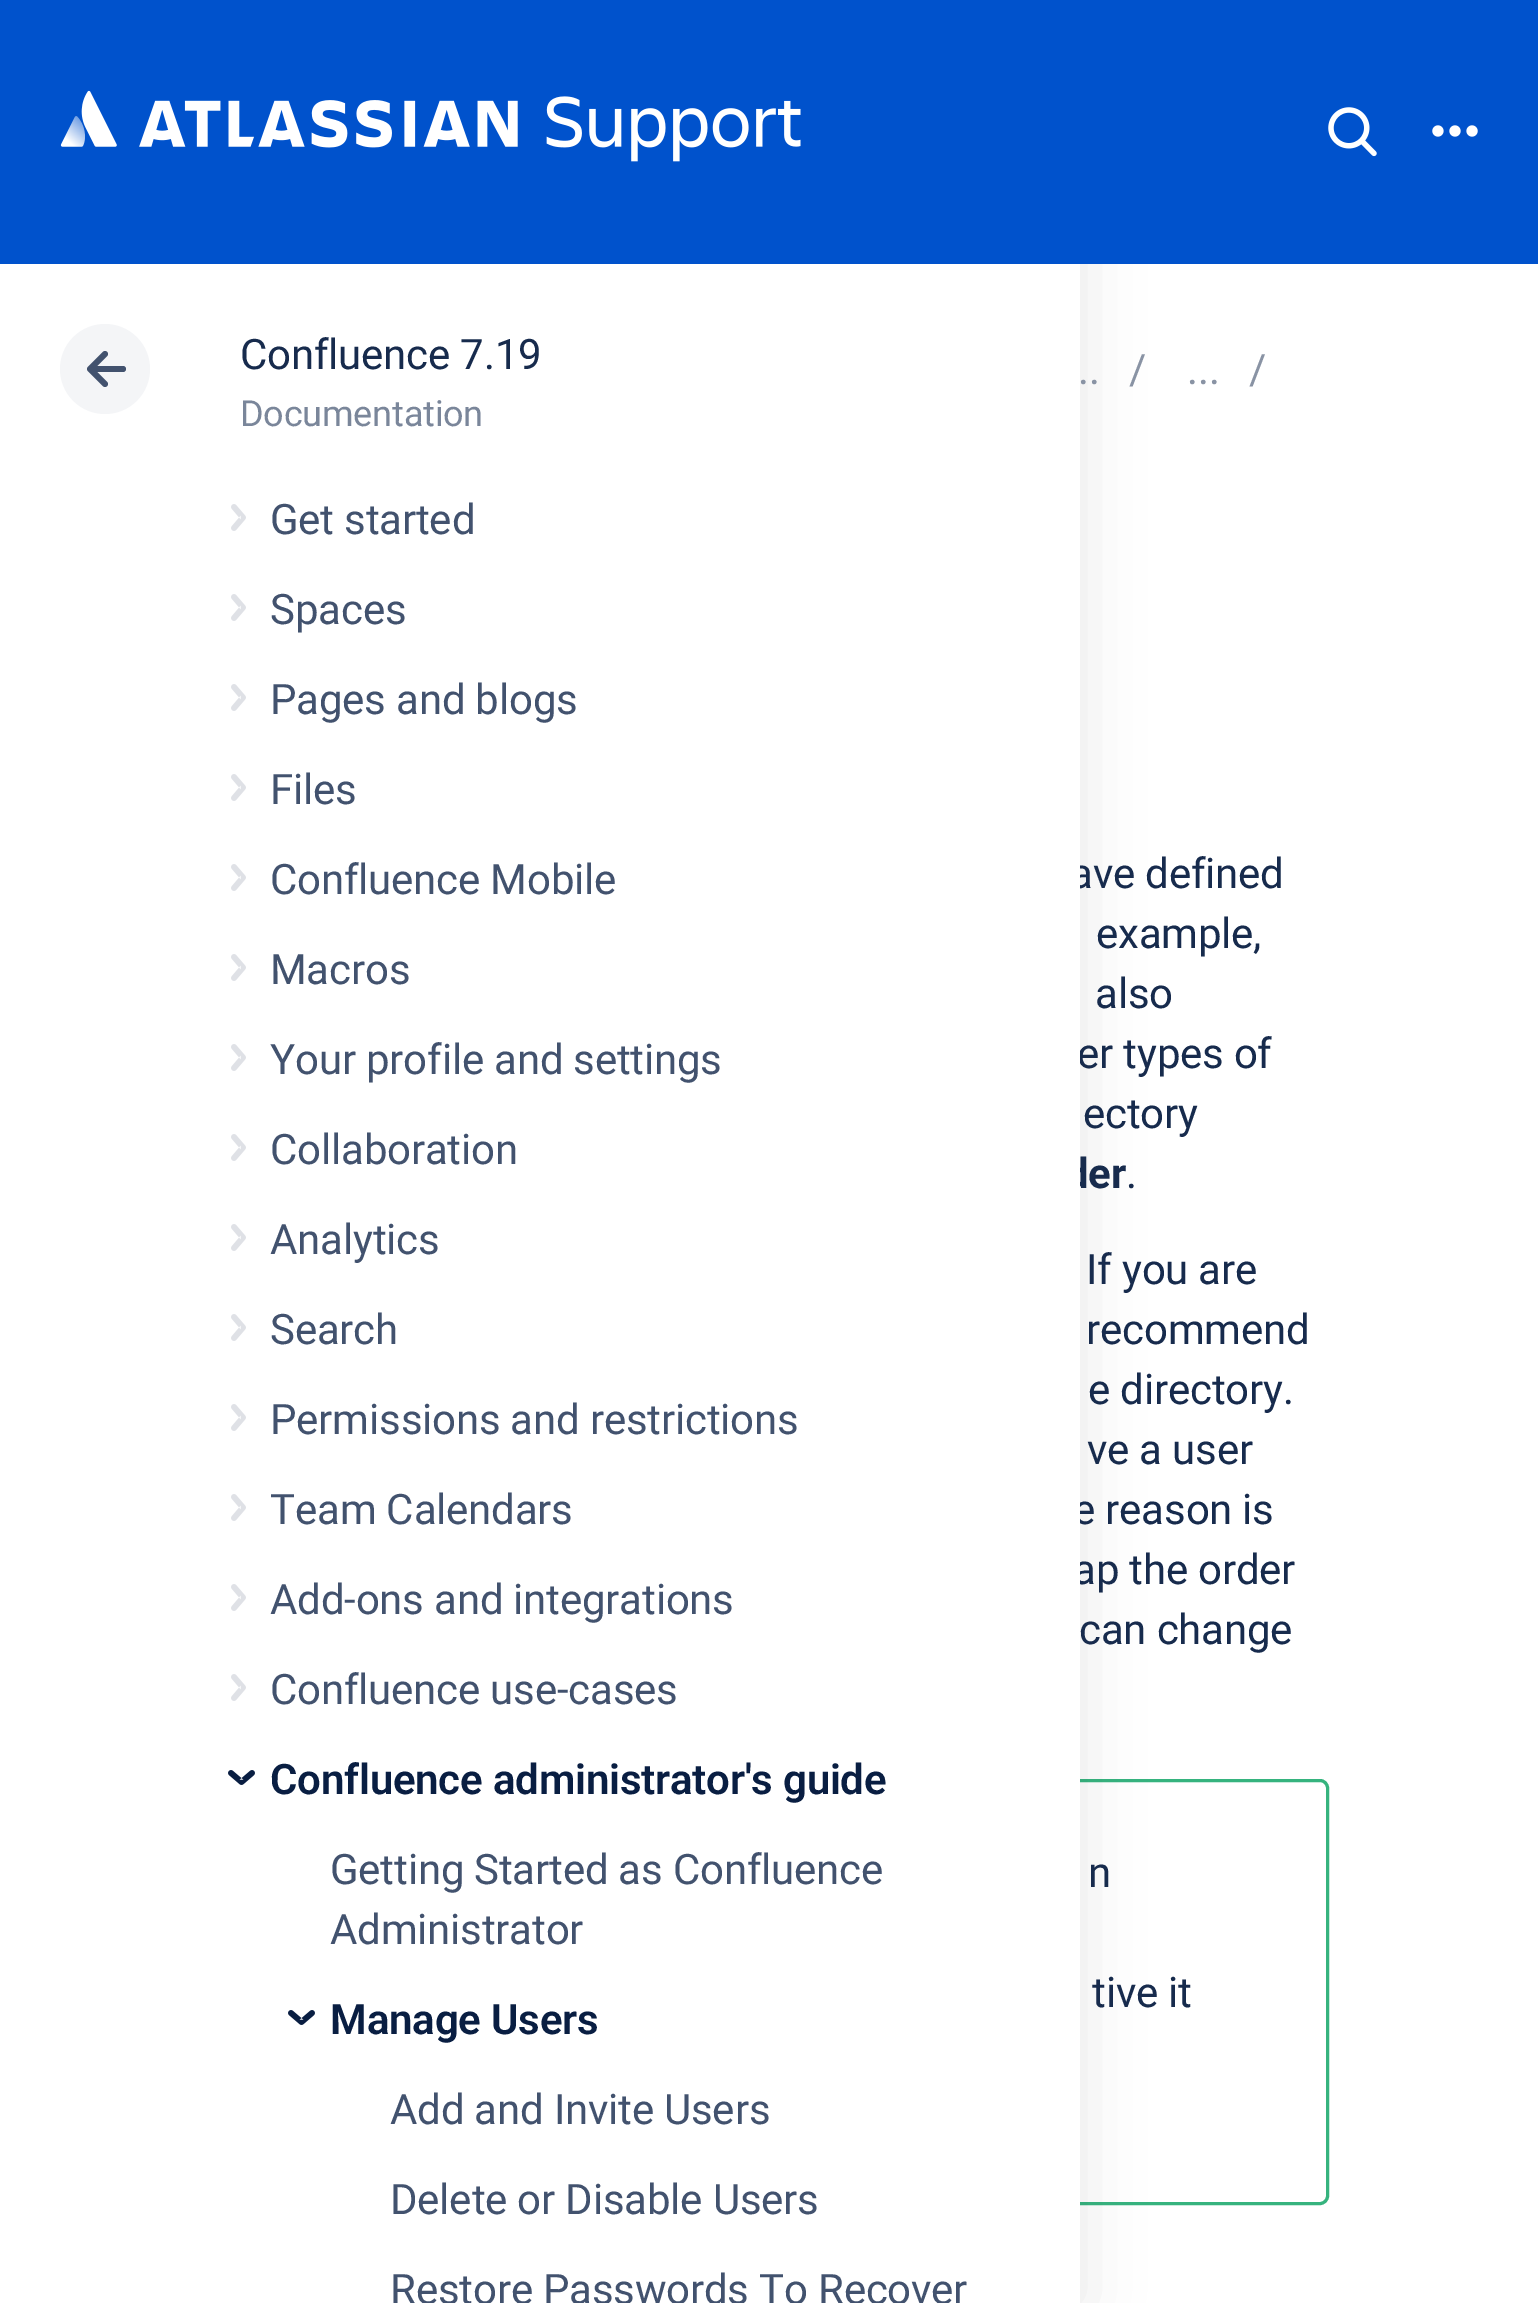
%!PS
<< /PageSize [1538 2303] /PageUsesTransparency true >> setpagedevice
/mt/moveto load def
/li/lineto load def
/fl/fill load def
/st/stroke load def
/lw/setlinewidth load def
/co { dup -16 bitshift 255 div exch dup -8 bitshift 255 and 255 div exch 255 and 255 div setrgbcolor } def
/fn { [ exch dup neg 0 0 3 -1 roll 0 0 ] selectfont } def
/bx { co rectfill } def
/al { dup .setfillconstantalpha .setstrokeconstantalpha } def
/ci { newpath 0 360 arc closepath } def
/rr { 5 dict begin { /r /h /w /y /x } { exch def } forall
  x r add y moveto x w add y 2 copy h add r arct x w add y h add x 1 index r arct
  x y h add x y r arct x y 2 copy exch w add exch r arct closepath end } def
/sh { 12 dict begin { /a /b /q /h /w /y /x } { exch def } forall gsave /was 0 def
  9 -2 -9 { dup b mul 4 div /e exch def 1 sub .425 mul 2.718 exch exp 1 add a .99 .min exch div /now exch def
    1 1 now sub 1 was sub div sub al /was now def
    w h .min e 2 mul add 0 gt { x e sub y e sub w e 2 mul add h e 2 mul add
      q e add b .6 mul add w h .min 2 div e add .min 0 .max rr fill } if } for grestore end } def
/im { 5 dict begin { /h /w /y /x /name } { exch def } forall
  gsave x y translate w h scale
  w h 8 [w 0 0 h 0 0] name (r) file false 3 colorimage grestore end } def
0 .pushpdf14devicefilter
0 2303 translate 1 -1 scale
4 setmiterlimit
0 0 1538 2303 16#FFFFFF bx
16#36B37E co
3 lw
211.5 1780.5 1116 423 7.5 rr st
16#161616 co
0 0 1080 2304 0 30 .1 sh
0 0 1538 264 16#0052CC bx
(media/1.raw) 60 90 741 72 im
(media/2.raw) 1328 107 49 50 im
(media/3.raw) 1432 125 46 12 im
/Roboto-Regular 42 fn
16#8993A4 co
1078 384 mt -.2 0 (..) ashow
1129 384 mt -.2 0 (/) ashow
1187 384 mt -.2 0 (...) ashow
1249 384 mt -.2 0 (/) ashow
16#172B4D co
1070 888 mt -.2 0 (ave defined) ashow
1096 948 mt -.2 0 (example,) ashow
1095 1008 mt -.2 0 (also) ashow
1077 1068 mt -.2 0 (er types of) ashow
1083 1128 mt -.2 0 (ectory) ashow
/Roboto-Bold 42 fn
1065 1188 mt -.2 0 (der) ashow
/Roboto-Regular 42 fn
1126 1188 mt -.2 0 (.) ashow
1086 1284 mt -.2 0 (If you are) ashow
1086 1344 mt -.2 0 (recommend) ashow
1088 1404 mt -.2 0 (e directory.) ashow
1087 1464 mt -.2 0 (ve a user) ashow
1073 1524 mt -.2 0 (e reason is) ashow
1073 1584 mt -.2 0 (ap the order) ashow
0 264 1080 2039 16#FFFFFF bx
16#42526E co
390 2304 mt -.2 0 (Restore Passwords To Recover) ashow
390 2214 mt -.2 0 (Delete or Disable Users) ashow
390 2124 mt -.2 0 (Add and Invite Users) ashow
(media/5.raw) 288 2010 27 15 im
/Roboto-SemiBold 42 fn
16#091E42 co
330 2034 mt -.2 0 (Manage Users) ashow
/Roboto-Regular 42 fn
16#42526E co
330 1944 mt -.2 0 (Administrator) ashow
330 1884 mt -.2 0 (Getting Started as Confluence) ashow
(media/5.raw) 228 1770 27 15 im
/Roboto-SemiBold 42 fn
16#091E42 co
270 1794 mt -.2 0 (Confluence administrator's guide) ashow
(media/4.raw) 231 1674 15 27 im
/Roboto-Regular 42 fn
16#42526E co
270 1704 mt -.2 0 (Confluence use-cases) ashow
(media/4.raw) 231 1584 15 27 im
270 1614 mt -.2 0 (Add-ons and integrations) ashow
(media/4.raw) 231 1494 15 27 im
270 1524 mt -.2 0 (Team Calendars) ashow
(media/4.raw) 231 1404 15 27 im
270 1434 mt -.2 0 (Permissions and restrictions) ashow
(media/4.raw) 231 1314 15 27 im
270 1344 mt -.2 0 (Search) ashow
(media/4.raw) 231 1224 15 27 im
270 1254 mt -.2 0 (Analytics) ashow
(media/4.raw) 231 1134 15 27 im
270 1164 mt -.2 0 (Collaboration) ashow
(media/4.raw) 231 1044 15 27 im
270 1074 mt -.2 0 (Your profile and settings) ashow
(media/4.raw) 231 954 15 27 im
270 984 mt -.2 0 (Macros) ashow
(media/4.raw) 231 864 15 27 im
270 894 mt -.2 0 (Confluence Mobile) ashow
(media/4.raw) 231 774 15 27 im
270 804 mt -.2 0 (Files) ashow
(media/4.raw) 231 684 15 27 im
270 714 mt -.2 0 (Pages and blogs) ashow
(media/4.raw) 231 594 15 27 im
270 624 mt -.2 0 (Spaces) ashow
(media/4.raw) 231 504 15 27 im
270 534 mt -.2 0 (Get started) ashow
16#F4F5F7 co
105 369 45 ci fl
16#42526E co
90 366 36 6 3 rr fl
6 lw
1 setlinecap
1 setlinejoin
105 384 mt 90 369 li 105 354 li st
/Roboto-Regular 36 fn
16#7A869A co
240 426 mt -.2 0 (Documentation) ashow
/Roboto-Regular 42 fn
16#172B4D co
240 369 mt -.2 0 (Confluence 7.19) ashow
1079 1644 mt -.2 0 (can change) ashow
1088 1887 mt -.2 0 (n) ashow
1092 2007 mt -.2 0 (tive it) ashow
.poppdf14devicefilter showpage
